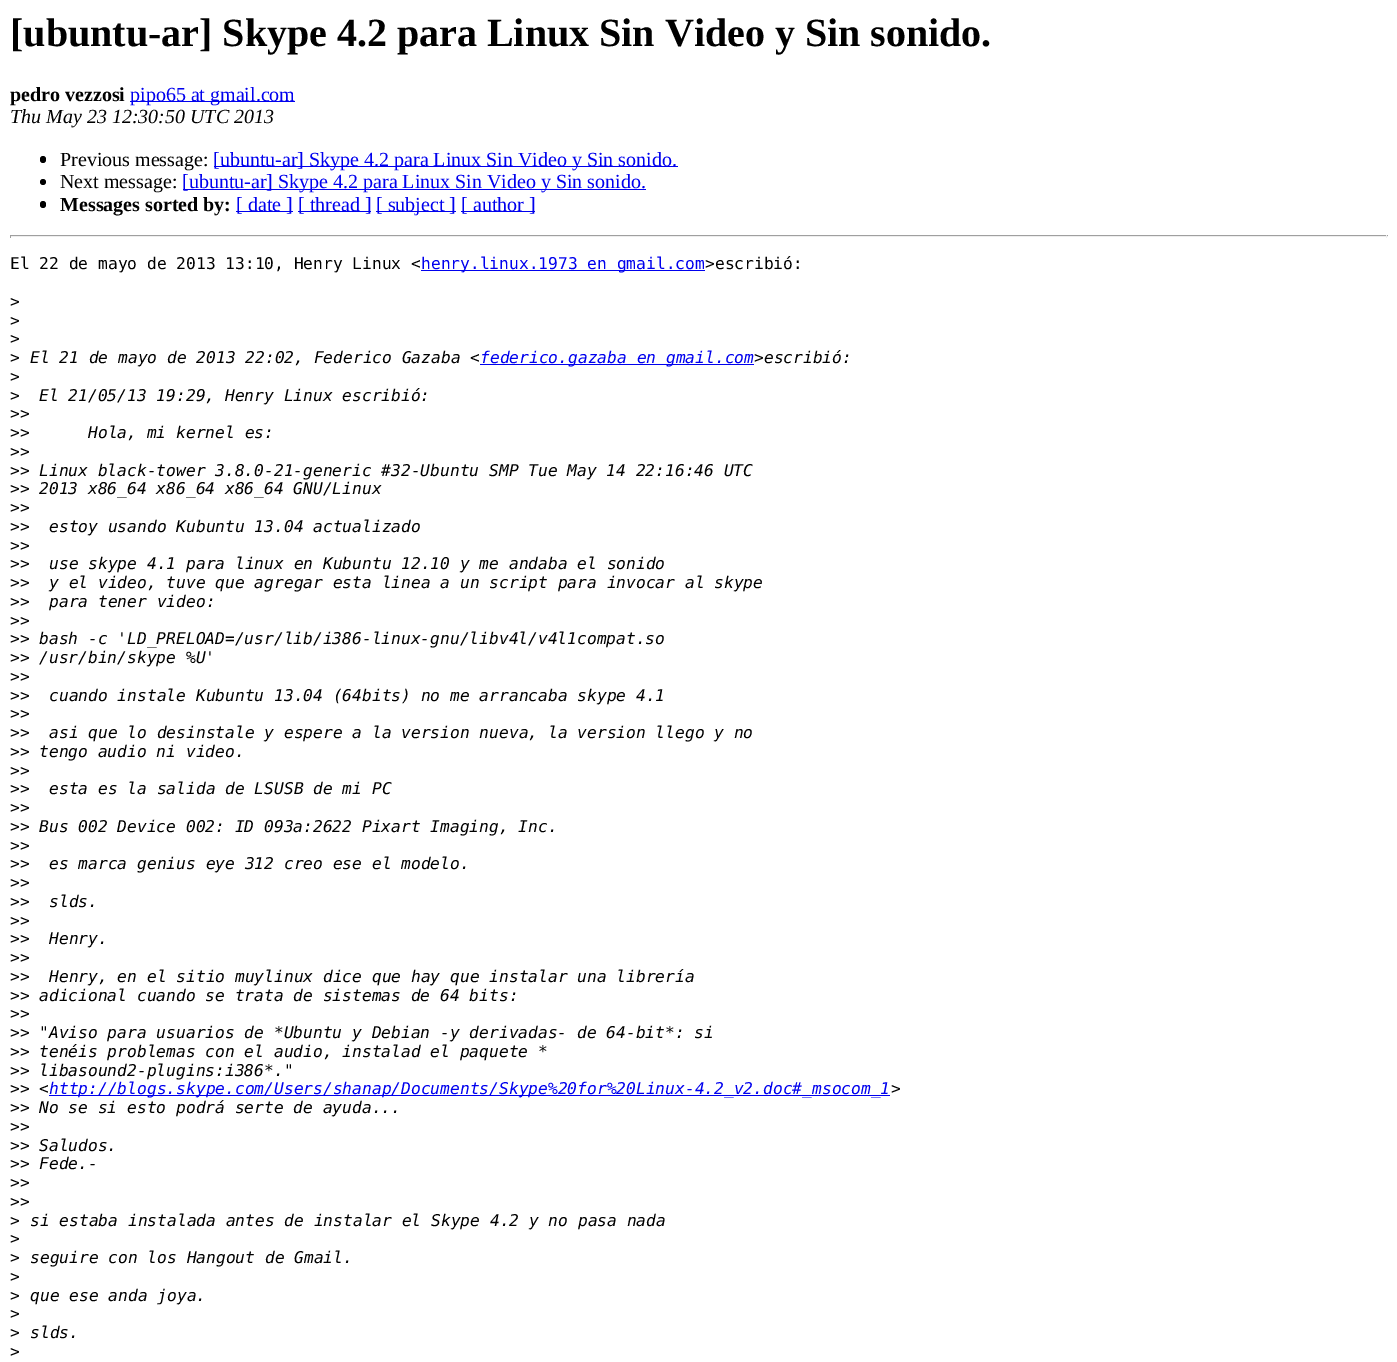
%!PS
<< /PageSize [1397 1362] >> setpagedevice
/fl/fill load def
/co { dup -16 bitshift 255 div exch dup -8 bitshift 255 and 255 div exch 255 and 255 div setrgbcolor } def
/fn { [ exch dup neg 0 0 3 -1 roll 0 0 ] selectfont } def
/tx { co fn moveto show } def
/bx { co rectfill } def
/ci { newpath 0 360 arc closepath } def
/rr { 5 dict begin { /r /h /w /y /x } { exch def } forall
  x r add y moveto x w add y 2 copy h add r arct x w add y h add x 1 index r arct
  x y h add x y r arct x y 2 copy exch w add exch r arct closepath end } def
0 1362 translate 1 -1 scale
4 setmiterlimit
0 0 1397 1362 16#FFFFFF bx
130 101 165 1 16#0000EE bx
16#000000 co
40 156 6 7 3 rr fl
214 166 464 1 16#0000EE bx
16#000000 co
43 182 3 ci fl
183 189 463 1 16#0000EE bx
16#000000 co
40 201 6 7 3 rr fl
236 211 57 1 16#0000EE bx
298 211 73 1 16#0000EE bx
376 211 80 1 16#0000EE bx
461 211 74 1 16#0000EE bx
10 235 1378 1 16#9F9F9F bx
1386 235 1 3 16#EEEEEE bx
10 236 1378 1 16#EEEEEE bx
10 235 1 3 16#9F9F9F bx
421 270 284 1 16#0000EE bx
480 364 274 1 16#0000EE bx
49 1095 841 1 16#0000EE bx
([ubuntu-ar] Skype 4.2 para Linux Sin Video y Sin sonido.) 10 46 /LiberationSerif-Bold 40 16#000000 tx
(pedro vezzosi) 10 101 /LiberationSerif-Bold 20 16#000000 tx
(pipo65 at gmail.com) 130 101 /LiberationSerif-Regular 20 16#0000EE tx
(Thu May 23 12:30:50 UTC 2013) 10 123 /LiberationSerif-Italic 20 16#000000 tx
(Previous message:) 60 166 /LiberationSerif-Regular 20 16#000000 tx
([ubuntu-ar] Skype 4.2 para Linux Sin Video y Sin sonido.) 213 166 /LiberationSerif-Regular 20 16#0000EE tx
(Next message:) 60 188 /LiberationSerif-Regular 20 16#000000 tx
([ubuntu-ar] Skype 4.2 para Linux Sin Video y Sin sonido.) 182 188 /LiberationSerif-Regular 20 16#0000EE tx
(Messages sorted by:) 60 211 /LiberationSerif-Bold 20 16#000000 tx
([ date ]) 236 211 /LiberationSerif-Regular 20 16#0000EE tx
([ thread ]) 298 211 /LiberationSerif-Regular 20 16#0000EE tx
([ subject ]) 376 211 /LiberationSerif-Regular 20 16#0000EE tx
([ author ]) 461 211 /LiberationSerif-Regular 20 16#0000EE tx
(El 22 de mayo de 2013 13:10, Henry Linux <) 10 269 /DejaVuSansMono-Regular 16.25 16#000000 tx
(henry.linux.1973 en gmail.com) 421 269 /DejaVuSansMono-Regular 16.25 16#0000EE tx
(>escribió:) 705 269 /DejaVuSansMono-Regular 16.25 16#000000 tx
(>) 10 307 /DejaVuSansMono-Regular 16.25 16#000000 tx
(>) 10 326 /DejaVuSansMono-Regular 16.25 16#000000 tx
(>) 10 344 /DejaVuSansMono-Regular 16.25 16#000000 tx
(>) 10 363 /DejaVuSansMono-Regular 16.25 16#000000 tx
(El 21 de mayo de 2013 22:02, Federico Gazaba <) 30 363 /DejaVuSansMono-Italic 16.25 16#000000 tx
(federico.gazaba en gmail.com) 480 363 /DejaVuSansMono-Italic 16.25 16#0000EE tx
(>escribió:) 754 363 /DejaVuSansMono-Italic 16.25 16#000000 tx
(>) 10 382 /DejaVuSansMono-Regular 16.25 16#000000 tx
(>) 10 401 /DejaVuSansMono-Regular 16.25 16#000000 tx
(El 21/05/13 19:29, Henry Linux escribió:) 39 401 /DejaVuSansMono-Italic 16.25 16#000000 tx
(>>) 10 419 /DejaVuSansMono-Regular 16.25 16#000000 tx
(>>) 10 438 /DejaVuSansMono-Regular 16.25 16#000000 tx
(Hola, mi kernel es:) 88 438 /DejaVuSansMono-Italic 16.25 16#000000 tx
(>>) 10 457 /DejaVuSansMono-Regular 16.25 16#000000 tx
(>>) 10 476 /DejaVuSansMono-Regular 16.25 16#000000 tx
(Linux black-tower 3.8.0-21-generic #32-Ubuntu SMP Tue May 14 22:16:46 UTC) 39 476 /DejaVuSansMono-Italic 16.25 16#000000 tx
(>>) 10 494 /DejaVuSansMono-Regular 16.25 16#000000 tx
(2013 x86_64 x86_64 x86_64 GNU/Linux) 39 494 /DejaVuSansMono-Italic 16.25 16#000000 tx
(>>) 10 513 /DejaVuSansMono-Regular 16.25 16#000000 tx
(>>) 10 532 /DejaVuSansMono-Regular 16.25 16#000000 tx
(estoy usando Kubuntu 13.04 actualizado) 49 532 /DejaVuSansMono-Italic 16.25 16#000000 tx
(>>) 10 551 /DejaVuSansMono-Regular 16.25 16#000000 tx
(>>) 10 569 /DejaVuSansMono-Regular 16.25 16#000000 tx
(use skype 4.1 para linux en Kubuntu 12.10 y me andaba el sonido) 49 569 /DejaVuSansMono-Italic 16.25 16#000000 tx
(>>) 10 588 /DejaVuSansMono-Regular 16.25 16#000000 tx
(y el video, tuve que agregar esta linea a un script para invocar al skype) 49 588 /DejaVuSansMono-Italic 16.25 16#000000 tx
(>>) 10 607 /DejaVuSansMono-Regular 16.25 16#000000 tx
(para tener video:) 49 607 /DejaVuSansMono-Italic 16.25 16#000000 tx
(>>) 10 626 /DejaVuSansMono-Regular 16.25 16#000000 tx
(>>) 10 644 /DejaVuSansMono-Regular 16.25 16#000000 tx
(bash -c 'LD_PRELOAD=/usr/lib/i386-linux-gnu/libv4l/v4l1compat.so) 39 644 /DejaVuSansMono-Italic 16.25 16#000000 tx
(>>) 10 663 /DejaVuSansMono-Regular 16.25 16#000000 tx
(/usr/bin/skype %U') 39 663 /DejaVuSansMono-Italic 16.25 16#000000 tx
(>>) 10 682 /DejaVuSansMono-Regular 16.25 16#000000 tx
(>>) 10 701 /DejaVuSansMono-Regular 16.25 16#000000 tx
(cuando instale Kubuntu 13.04 \(64bits\) no me arrancaba skype 4.1) 49 701 /DejaVuSansMono-Italic 16.25 16#000000 tx
(>>) 10 719 /DejaVuSansMono-Regular 16.25 16#000000 tx
(>>) 10 738 /DejaVuSansMono-Regular 16.25 16#000000 tx
(asi que lo desinstale y espere a la version nueva, la version llego y no) 49 738 /DejaVuSansMono-Italic 16.25 16#000000 tx
(>>) 10 757 /DejaVuSansMono-Regular 16.25 16#000000 tx
(tengo audio ni video.) 39 757 /DejaVuSansMono-Italic 16.25 16#000000 tx
(>>) 10 776 /DejaVuSansMono-Regular 16.25 16#000000 tx
(>>) 10 794 /DejaVuSansMono-Regular 16.25 16#000000 tx
(esta es la salida de LSUSB de mi PC) 49 794 /DejaVuSansMono-Italic 16.25 16#000000 tx
(>>) 10 813 /DejaVuSansMono-Regular 16.25 16#000000 tx
(>>) 10 832 /DejaVuSansMono-Regular 16.25 16#000000 tx
(Bus 002 Device 002: ID 093a:2622 Pixart Imaging, Inc.) 39 832 /DejaVuSansMono-Italic 16.25 16#000000 tx
(>>) 10 851 /DejaVuSansMono-Regular 16.25 16#000000 tx
(>>) 10 869 /DejaVuSansMono-Regular 16.25 16#000000 tx
(es marca genius eye 312 creo ese el modelo.) 49 869 /DejaVuSansMono-Italic 16.25 16#000000 tx
(>>) 10 888 /DejaVuSansMono-Regular 16.25 16#000000 tx
(>>) 10 907 /DejaVuSansMono-Regular 16.25 16#000000 tx
(slds.) 49 907 /DejaVuSansMono-Italic 16.25 16#000000 tx
(>>) 10 926 /DejaVuSansMono-Regular 16.25 16#000000 tx
(>>) 10 944 /DejaVuSansMono-Regular 16.25 16#000000 tx
(Henry.) 49 944 /DejaVuSansMono-Italic 16.25 16#000000 tx
(>>) 10 963 /DejaVuSansMono-Regular 16.25 16#000000 tx
(>>) 10 982 /DejaVuSansMono-Regular 16.25 16#000000 tx
(Henry, en el sitio muylinux dice que hay que instalar una librería) 49 982 /DejaVuSansMono-Italic 16.25 16#000000 tx
(>>) 10 1001 /DejaVuSansMono-Regular 16.25 16#000000 tx
(adicional cuando se trata de sistemas de 64 bits:) 39 1001 /DejaVuSansMono-Italic 16.25 16#000000 tx
(>>) 10 1019 /DejaVuSansMono-Regular 16.25 16#000000 tx
(>>) 10 1038 /DejaVuSansMono-Regular 16.25 16#000000 tx
("Aviso para usuarios de *Ubuntu y Debian -y derivadas- de 64-bit*: si) 39 1038 /DejaVuSansMono-Italic 16.25 16#000000 tx
(>>) 10 1057 /DejaVuSansMono-Regular 16.25 16#000000 tx
(tenéis problemas con el audio, instalad el paquete *) 39 1057 /DejaVuSansMono-Italic 16.25 16#000000 tx
(>>) 10 1076 /DejaVuSansMono-Regular 16.25 16#000000 tx
(libasound2-plugins:i386*.") 39 1076 /DejaVuSansMono-Italic 16.25 16#000000 tx
(>>) 10 1094 /DejaVuSansMono-Regular 16.25 16#000000 tx
(<) 39 1094 /DejaVuSansMono-Italic 16.25 16#000000 tx
(http://blogs.skype.com/Users/shanap/Documents/Skype%20for%20Linux-4.2_v2.doc#_msocom_1) 49 1094 /DejaVuSansMono-Italic 16.25 16#0000EE tx
(>) 891 1094 /DejaVuSansMono-Italic 16.25 16#000000 tx
(>>) 10 1113 /DejaVuSansMono-Regular 16.25 16#000000 tx
(No se si esto podrá serte de ayuda...) 39 1113 /DejaVuSansMono-Italic 16.25 16#000000 tx
(>>) 10 1132 /DejaVuSansMono-Regular 16.25 16#000000 tx
(>>) 10 1151 /DejaVuSansMono-Regular 16.25 16#000000 tx
(Saludos.) 39 1151 /DejaVuSansMono-Italic 16.25 16#000000 tx
(>>) 10 1169 /DejaVuSansMono-Regular 16.25 16#000000 tx
(Fede.-) 39 1169 /DejaVuSansMono-Italic 16.25 16#000000 tx
(>>) 10 1188 /DejaVuSansMono-Regular 16.25 16#000000 tx
(>>) 10 1207 /DejaVuSansMono-Regular 16.25 16#000000 tx
(>) 10 1226 /DejaVuSansMono-Regular 16.25 16#000000 tx
(si estaba instalada antes de instalar el Skype 4.2 y no pasa nada) 30 1226 /DejaVuSansMono-Italic 16.25 16#000000 tx
(>) 10 1244 /DejaVuSansMono-Regular 16.25 16#000000 tx
(>) 10 1263 /DejaVuSansMono-Regular 16.25 16#000000 tx
(seguire con los Hangout de Gmail.) 30 1263 /DejaVuSansMono-Italic 16.25 16#000000 tx
(>) 10 1282 /DejaVuSansMono-Regular 16.25 16#000000 tx
(>) 10 1301 /DejaVuSansMono-Regular 16.25 16#000000 tx
(que ese anda joya.) 30 1301 /DejaVuSansMono-Italic 16.25 16#000000 tx
(>) 10 1319 /DejaVuSansMono-Regular 16.25 16#000000 tx
(>) 10 1338 /DejaVuSansMono-Regular 16.25 16#000000 tx
(slds.) 30 1338 /DejaVuSansMono-Italic 16.25 16#000000 tx
(>) 10 1357 /DejaVuSansMono-Regular 16.25 16#000000 tx
showpage
